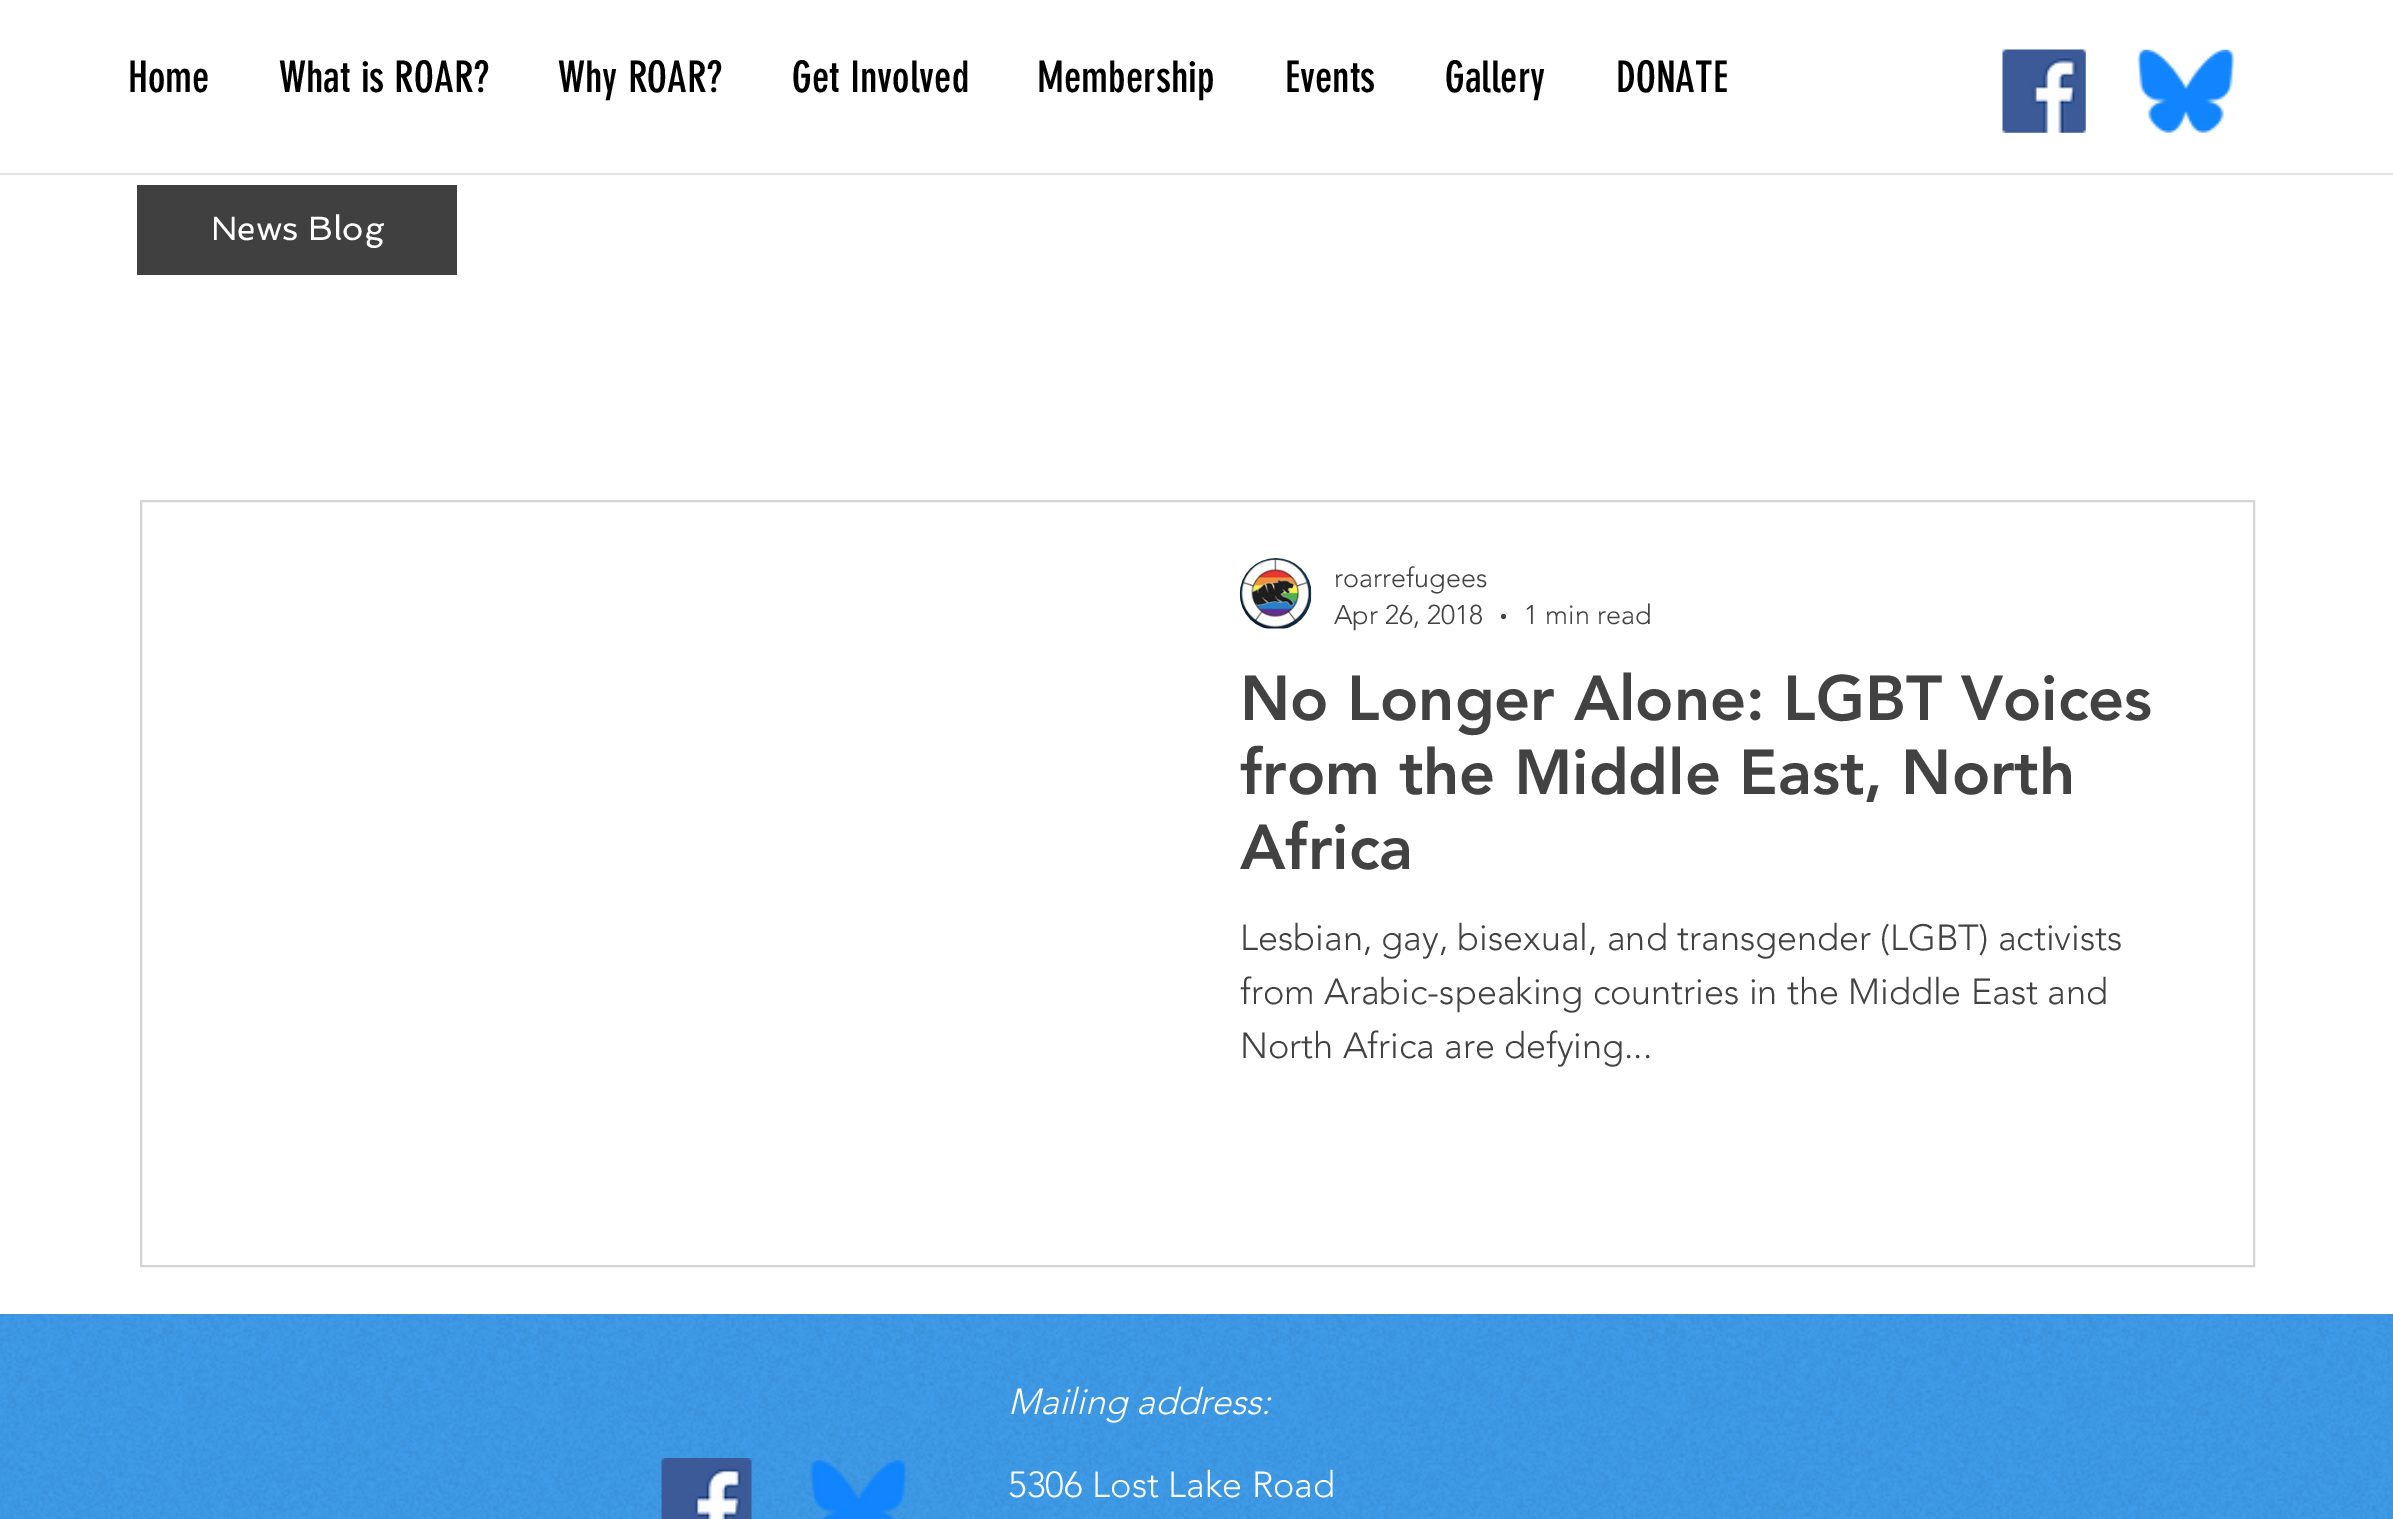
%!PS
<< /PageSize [2393 1519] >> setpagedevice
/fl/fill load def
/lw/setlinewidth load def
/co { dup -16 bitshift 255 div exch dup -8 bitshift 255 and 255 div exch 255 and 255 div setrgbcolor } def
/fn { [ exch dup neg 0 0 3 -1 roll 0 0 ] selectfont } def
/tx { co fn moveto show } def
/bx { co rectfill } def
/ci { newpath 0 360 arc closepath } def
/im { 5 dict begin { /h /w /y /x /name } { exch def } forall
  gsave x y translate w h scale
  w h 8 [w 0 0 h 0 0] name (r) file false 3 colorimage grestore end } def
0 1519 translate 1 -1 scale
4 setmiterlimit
0 0 2393 1519 16#FFFFFF bx
(media/1.raw) 2002 49 84 84 im
(media/2.raw) 2137 49 97 84 im
0 173 2393 2 16#E3E3E3 bx
137 185 320 90 16#404040 bx
16#D5D5D5 co
2 lw
141 501 2113 765 rectstroke
(media/3.raw) 1239 558 73 72 im
16#424242 co
1503.5 616.5 2.5 ci fl
0 1314 2393 205 16#3D9BE9 bx
(media/4.raw) 0 1314 2393 205 im
(media/5.raw) 661 1458 91 61 im
(media/6.raw) 810 1460 97 59 im
(Home) 128 92 /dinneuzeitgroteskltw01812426-Regular 42.75 16#000000 tx
(What is ROAR?) 279 92 /dinneuzeitgroteskltw01812426-Regular 42.75 16#000000 tx
(Why ROAR?) 558 92 /dinneuzeitgroteskltw01812426-Regular 42.75 16#000000 tx
(Get Involved) 792 92 /dinneuzeitgroteskltw01812426-Regular 42.75 16#000000 tx
(Membership) 1037 92 /dinneuzeitgroteskltw01812426-Regular 42.75 16#000000 tx
(Events) 1285 92 /dinneuzeitgroteskltw01812426-Regular 42.75 16#000000 tx
(Gallery) 1445 92 /dinneuzeitgroteskltw01812426-Regular 42.75 16#000000 tx
(DONATE) 1616 92 /dinneuzeitgroteskltw01812426-Regular 42.75 16#000000 tx
(News Blog) 211 240 /Spinnaker-Regular 33.75 16#FFFFFF tx
(roarrefugees) 1334 587 /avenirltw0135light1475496-Light 27 16#424242 tx
(Apr 26, 2018) 1334 624 /avenirltw0135light1475496-Light 27 16#424242 tx
(1 min read) 1524 624 /avenirltw0135light1475496-Light 27 16#424242 tx
(No Longer Alone: LGBT Voices) 1240 720 /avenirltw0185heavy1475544-Black 63 16#424242 tx
(from the Middle East, North) 1240 794 /avenirltw0185heavy1475544-Black 63 16#424242 tx
(Africa) 1240 869 /avenirltw0185heavy1475544-Black 63 16#424242 tx
(Lesbian, gay, bisexual, and transgender \(LGBT\) activists) 1240 950 /avenirltw0135light1475496-Light 36 16#424242 tx
(from Arabic-speaking countries in the Middle East and) 1240 1004 /avenirltw0135light1475496-Light 36 16#424242 tx
(North Africa are defying...) 1240 1058 /avenirltw0135light1475496-Light 36 16#424242 tx
(Mailing address:) 1008 1414 /avenirltw0135light1475496-LightItalic 36 16#FFFFFF tx
(5306 Lost Lake Road) 1008 1497 /avenirltw0135light1475496-Light 36 16#FFFFFF tx
showpage
